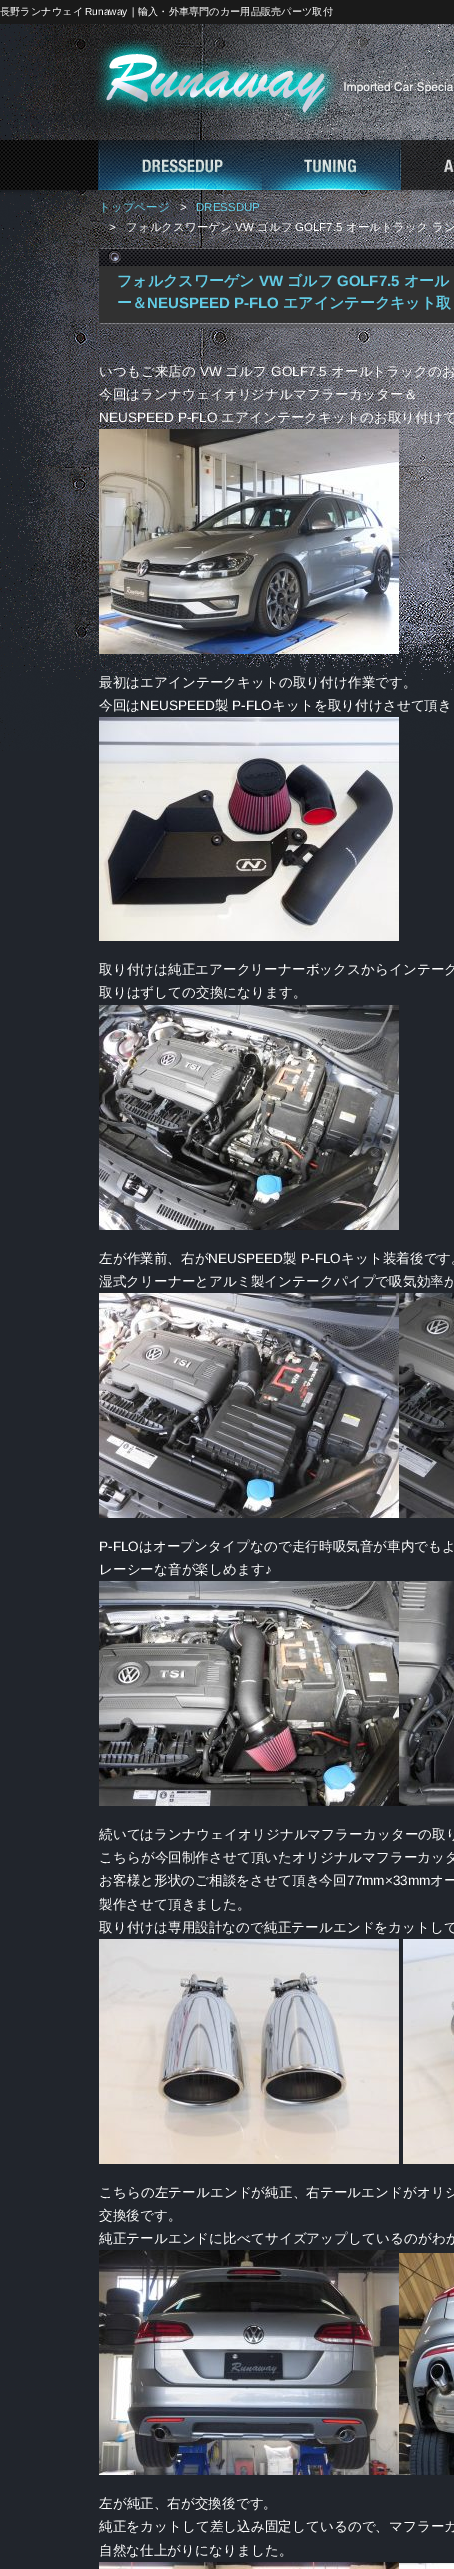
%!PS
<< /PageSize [454 2569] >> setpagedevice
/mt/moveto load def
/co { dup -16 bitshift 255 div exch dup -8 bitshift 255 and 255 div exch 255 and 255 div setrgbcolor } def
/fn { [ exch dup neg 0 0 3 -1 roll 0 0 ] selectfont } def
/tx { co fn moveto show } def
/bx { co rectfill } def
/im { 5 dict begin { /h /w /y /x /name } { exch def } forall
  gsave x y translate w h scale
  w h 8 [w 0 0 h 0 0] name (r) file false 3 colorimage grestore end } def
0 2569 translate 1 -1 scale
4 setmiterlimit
0 0 454 2569 16#21252C bx
0 0 454 24 16#1A1A1A bx
(media/1.raw) 0 24 454 727 im
(media/2.raw) 95 39 359 85 im
(media/3.raw) 92 140 170 50 im
(media/4.raw) 262 140 139 50 im
(media/5.raw) 401 140 53 50 im
(media/6.raw) 99 248 355 80 im
(media/7.raw) 99 429 300 225 im
(media/8.raw) 99 717 300 224 im
(media/9.raw) 99 1005 300 225 im
(media/10.raw) 99 1293 300 225 im
(media/11.raw) 399 1293 55 225 im
(media/12.raw) 99 1581 300 225 im
(media/13.raw) 399 1581 55 225 im
(media/14.raw) 99 1939 300 225 im
(media/15.raw) 403 1939 51 225 im
(media/16.raw) 99 2250 300 225 im
(media/17.raw) 399 2253 55 222 im
(media/18.raw) 99 2562 300 7 im
(media/19.raw) 399 2563 55 6 im
(長野ランナウェイ) 0 15 /WenQuanYiZenHei-Medium 10.2 16#FFFFFF tx
(Runaway) 85 15 /LiberationSans-Regular 10.2 16#FFFFFF tx
(｜輸入・外車専門のカー用品販売パーツ取付) 128 15 /WenQuanYiZenHei-Medium 10.2 16#FFFFFF tx
(トップページ) 99 211 /WenQuanYiZenHei-Medium 11.5 16#62CCE5 tx
/LiberationSans-Regular 11.5 fn
16#FFFFFF co
180 211 mt 10 0 (>) ashow
(DRESSDUP) 196 211 /LiberationSans-Regular 11.5 16#62CCE5 tx
16#FFFFFF co
109 231 mt 10 0 (>) ashow
(フォルクスワーゲン) 126 231 /WenQuanYiZenHei-Medium 11.5 16#FFFFFF tx
(VW) 235 231 /LiberationSans-Regular 11.5 16#FFFFFF tx
(ゴルフ) 257 231 /WenQuanYiZenHei-Medium 11.5 16#FFFFFF tx
(GOLF7.5) 295 231 /LiberationSans-Regular 11.5 16#FFFFFF tx
(オールトラック) 346 231 /WenQuanYiZenHei-Medium 11.5 16#FFFFFF tx
(ラン) 432 231 /WenQuanYiZenHei-Medium 11.5 16#FFFFFF tx
(フォルクスワーゲン) 117 286 /WenQuanYiZenHei-Bold 15 16#62CCE5 tx
(VW) 259 286 /LiberationSans-Bold 15 16#62CCE5 tx
(ゴルフ) 287 286 /WenQuanYiZenHei-Bold 15 16#62CCE5 tx
(GOLF7.5) 337 286 /LiberationSans-Bold 15 16#62CCE5 tx
(オール) 404 286 /WenQuanYiZenHei-Bold 15 16#62CCE5 tx
(ー＆) 117 308 /WenQuanYiZenHei-Bold 15 16#62CCE5 tx
(NEUSPEED P-FLO) 147 308 /LiberationSans-Bold 15 16#62CCE5 tx
(エアインテークキット取) 283 308 /WenQuanYiZenHei-Bold 15 16#62CCE5 tx
(いつもご来店の) 99 376 /WenQuanYiZenHei-Medium 13.6 16#FFFFFF tx
(VW) 200 376 /LiberationSans-Regular 13.6 16#FFFFFF tx
(ゴルフ) 225 376 /WenQuanYiZenHei-Medium 13.6 16#FFFFFF tx
(GOLF7.5) 271 376 /LiberationSans-Regular 13.6 16#FFFFFF tx
(オールトラックのお) 331 376 /WenQuanYiZenHei-Medium 13.6 16#FFFFFF tx
(今回はランナウェイオリジナルマフラーカッター＆) 99 399 /WenQuanYiZenHei-Medium 13.6 16#FFFFFF tx
(NEUSPEED P-FLO) 99 422 /LiberationSans-Regular 13.6 16#FFFFFF tx
(エアインテークキットのお取り付けで) 221 422 /WenQuanYiZenHei-Medium 13.6 16#FFFFFF tx
(最初はエアインテークキットの取り付け作業です。) 99 687 /WenQuanYiZenHei-Medium 13.6 16#FFFFFF tx
(今回は) 99 710 /WenQuanYiZenHei-Medium 13.6 16#FFFFFF tx
(NEUSPEED) 140 710 /LiberationSans-Regular 13.6 16#FFFFFF tx
(製) 215 710 /WenQuanYiZenHei-Medium 13.6 16#FFFFFF tx
(P-FLO) 232 710 /LiberationSans-Regular 13.6 16#FFFFFF tx
(キットを取り付けさせて頂き) 272 710 /WenQuanYiZenHei-Medium 13.6 16#FFFFFF tx
(取り付けは純正エアークリーナーボックスからインテーク) 99 974 /WenQuanYiZenHei-Medium 13.6 16#FFFFFF tx
(取りはずしての交換になります。) 99 997 /WenQuanYiZenHei-Medium 13.6 16#FFFFFF tx
(左が作業前、右が) 99 1263 /WenQuanYiZenHei-Medium 13.6 16#FFFFFF tx
(NEUSPEED) 208 1263 /LiberationSans-Regular 13.6 16#FFFFFF tx
(製) 283 1263 /WenQuanYiZenHei-Medium 13.6 16#FFFFFF tx
(P-FLO) 301 1263 /LiberationSans-Regular 13.6 16#FFFFFF tx
(キット装着後です。) 341 1263 /WenQuanYiZenHei-Medium 13.6 16#FFFFFF tx
(湿式クリーナーとアルミ製インテークパイプで吸気効率が) 99 1286 /WenQuanYiZenHei-Medium 13.6 16#FFFFFF tx
(P-FLO) 99 1551 /LiberationSans-Regular 13.6 16#FFFFFF tx
(はオープンタイプなので走行時吸気音が車内でもよ) 139 1551 /WenQuanYiZenHei-Medium 13.6 16#FFFFFF tx
(レーシーな音が楽しめます) 99 1574 /WenQuanYiZenHei-Medium 13.6 16#FFFFFF tx
(♪) 265 1574 /LiberationSans-Regular 13.6 16#FFFFFF tx
(続いてはランナウェイオリジナルマフラーカッターの取り) 99 1839 /WenQuanYiZenHei-Medium 13.6 16#FFFFFF tx
(こちらが今回制作させて頂いたオリジナルマフラーカッタ) 99 1862 /WenQuanYiZenHei-Medium 13.6 16#FFFFFF tx
(お客様と形状のご相談をさせて頂き今回) 99 1885 /WenQuanYiZenHei-Medium 13.6 16#FFFFFF tx
(77mm×33mm) 347 1885 /LiberationSans-Regular 13.6 16#FFFFFF tx
(オー) 430 1885 /WenQuanYiZenHei-Medium 13.6 16#FFFFFF tx
(製作させて頂きました。) 99 1909 /WenQuanYiZenHei-Medium 13.6 16#FFFFFF tx
(取り付けは専用設計なので純正テールエンドをカットして) 99 1932 /WenQuanYiZenHei-Medium 13.6 16#FFFFFF tx
(こちらの左テールエンドが純正、右テールエンドがオリジ) 99 2197 /WenQuanYiZenHei-Medium 13.6 16#FFFFFF tx
(交換後です。) 99 2220 /WenQuanYiZenHei-Medium 13.6 16#FFFFFF tx
(純正テールエンドに比べてサイズアップしているのがわか) 99 2243 /WenQuanYiZenHei-Medium 13.6 16#FFFFFF tx
(左が純正、右が交換後です。) 99 2508 /WenQuanYiZenHei-Medium 13.6 16#FFFFFF tx
(純正をカットして差し込み固定しているので、マフラーカ) 99 2531 /WenQuanYiZenHei-Medium 13.6 16#FFFFFF tx
(自然な仕上がりになりました。) 99 2555 /WenQuanYiZenHei-Medium 13.6 16#FFFFFF tx
showpage
